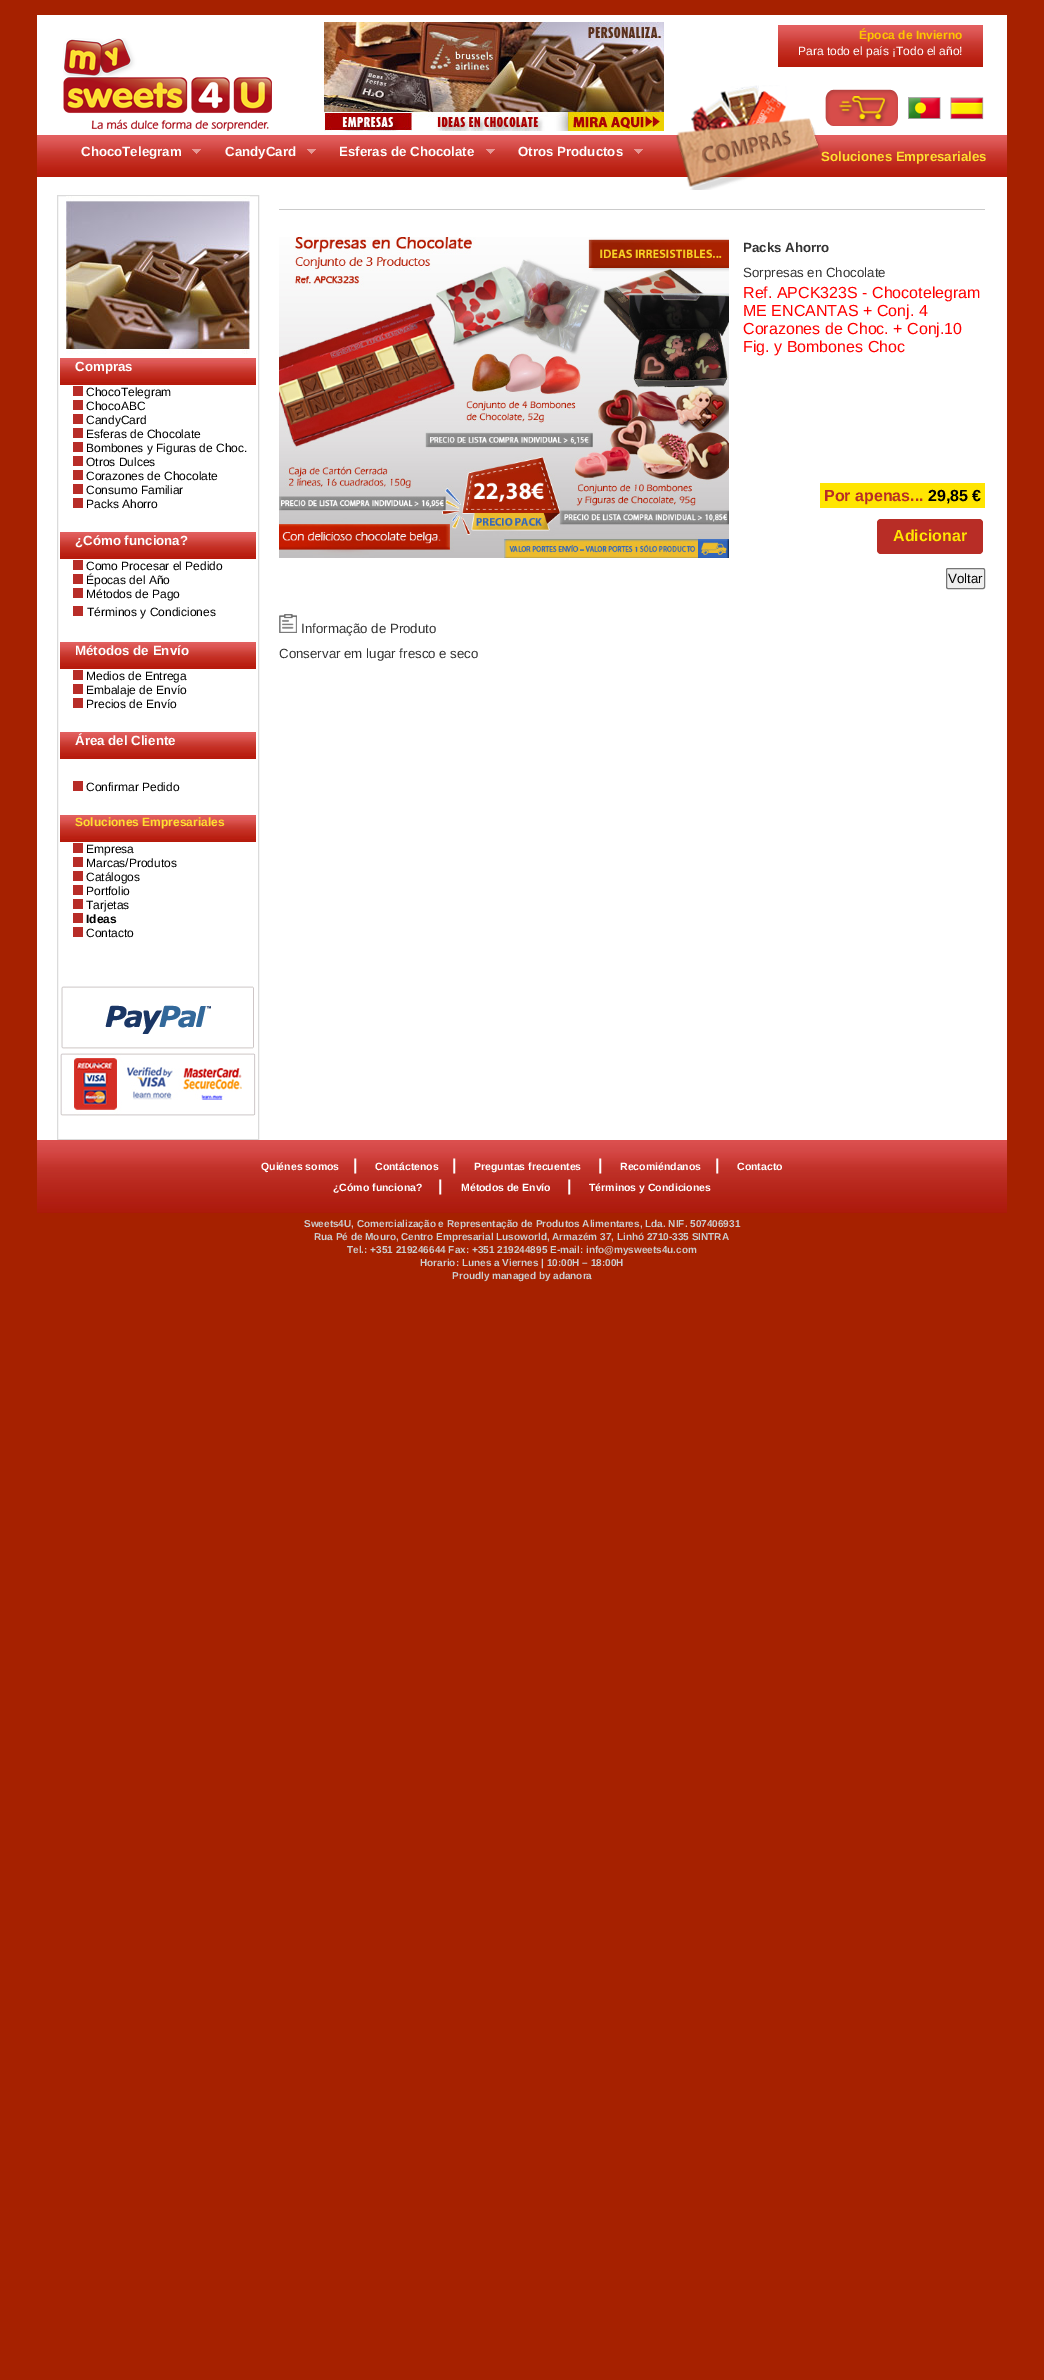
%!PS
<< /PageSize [1044 2380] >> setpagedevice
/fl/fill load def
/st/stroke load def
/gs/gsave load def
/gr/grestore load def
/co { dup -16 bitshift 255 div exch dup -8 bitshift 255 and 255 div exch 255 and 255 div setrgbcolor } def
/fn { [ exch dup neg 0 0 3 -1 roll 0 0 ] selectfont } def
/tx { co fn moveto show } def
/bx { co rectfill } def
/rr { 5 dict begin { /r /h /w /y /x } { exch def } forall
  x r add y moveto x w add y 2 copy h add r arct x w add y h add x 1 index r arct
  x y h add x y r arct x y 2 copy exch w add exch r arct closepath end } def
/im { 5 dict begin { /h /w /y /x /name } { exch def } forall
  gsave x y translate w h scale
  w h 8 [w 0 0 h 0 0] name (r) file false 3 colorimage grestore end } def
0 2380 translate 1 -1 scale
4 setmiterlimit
0 0 1044 2380 16#A62100 bx
37 15 970 1125 16#FFFFFF bx
(media/1.raw) 63 38 209 93 im
(media/2.raw) 324 22 340 109 im
(media/8.raw) 37 135 970 42 im
(media/3.raw) 676 85 146 105 im
(media/4.raw) 778 25 205 42 im
(media/5.raw) 825 89 73 37 im
(media/6.raw) 908 97 33 22 im
(media/7.raw) 950 97 34 23 im
(media/9.raw) 192 149 9 5 im
(media/9.raw) 307 149 9 5 im
(media/9.raw) 486 149 9 5 im
(media/9.raw) 634 149 9 5 im
16#DBDBDB co
57.5 195.5 201 944 rectstroke
(media/10.raw) 66 196 184 158 im
(media/11.raw) 60 358 196 27 im
73 386 10 10 16#B82D28 bx
73 400 10 10 16#B82D28 bx
73 414 10 10 16#B82D28 bx
73 428 10 10 16#B82D28 bx
73 442 10 10 16#B82D28 bx
73 456 10 10 16#B82D28 bx
73 470 10 10 16#B82D28 bx
73 484 10 10 16#B82D28 bx
73 498 10 10 16#B82D28 bx
(media/11.raw) 60 532 196 27 im
73 560 10 10 16#B82D28 bx
73 574 10 10 16#B82D28 bx
73 588 10 10 16#B82D28 bx
73 606 10 10 16#B82D28 bx
(media/11.raw) 60 642 196 27 im
73 670 10 10 16#B82D28 bx
73 684 10 10 16#B82D28 bx
73 698 10 10 16#B82D28 bx
(media/11.raw) 60 732 196 27 im
73 781 10 10 16#B82D28 bx
(media/11.raw) 60 815 196 27 im
73 843 10 10 16#B82D28 bx
73 857 10 10 16#B82D28 bx
73 871 10 10 16#B82D28 bx
73 885 10 10 16#B82D28 bx
73 899 10 10 16#B82D28 bx
73 913 10 10 16#B82D28 bx
73 927 10 10 16#B82D28 bx
(media/12.raw) 60 986 196 130 im
279 209 706 1 16#CBCBCB bx
(media/13.raw) 279 237 450 321 im
820 483 165 25 16#FFE502 bx
16#B82D26 co
877 519 106 35 4 rr fl
16#EFEFEF co
946.5 568.5 38 20 1.5 rr gs fl gr
16#767676 co
st
(media/14.raw) 279 614 18 19 im
(media/15.raw) 37 1140 970 73 im
(Época de Invierno) 859 39 /LiberationSans-Bold 12 16#FDC600 tx
(Para todo el país ¡Todo el año!) 798 55 /LiberationSans-Regular 12 16#FFFFFF tx
(ChocoTelegram) 81 156 /LiberationSans-Bold 13.3 16#FFFFFF tx
(CandyCard) 225 156 /LiberationSans-Bold 13.3 16#FFFFFF tx
(Esferas de Chocolate) 339 156 /LiberationSans-Bold 13.3 16#FFFFFF tx
(Otros Productos) 518 156 /LiberationSans-Bold 13.3 16#FFFFFF tx
(Soluciones Empresariales) 821 161 /LiberationSans-Bold 13.3 16#FFDE30 tx
(Compras) 75 371 /LiberationSans-Bold 13.3 16#FFFFFF tx
(ChocoTelegram) 86 396 /LiberationSans-Regular 12 16#000000 tx
(ChocoABC) 86 410 /LiberationSans-Regular 12 16#000000 tx
(CandyCard) 86 424 /LiberationSans-Regular 12 16#000000 tx
(Esferas de Chocolate) 86 438 /LiberationSans-Regular 12 16#000000 tx
(Bombones y Figuras de Choc.) 86 452 /LiberationSans-Regular 12 16#000000 tx
(Otros Dulces) 86 466 /LiberationSans-Regular 12 16#000000 tx
(Corazones de Chocolate) 86 480 /LiberationSans-Regular 12 16#000000 tx
(Consumo Familiar) 86 494 /LiberationSans-Regular 12 16#000000 tx
(Packs Ahorro) 86 508 /LiberationSans-Regular 12 16#000000 tx
(¿Cómo funciona?) 75 545 /LiberationSans-Bold 13.3 16#FFFFFF tx
(Como Procesar el Pedido) 86 570 /LiberationSans-Regular 12 16#000000 tx
(Épocas del Año) 86 584 /LiberationSans-Regular 12 16#000000 tx
(Métodos de Pago) 86 598 /LiberationSans-Regular 12 16#000000 tx
(Términos y Condiciones) 87 616 /LiberationSans-Regular 12 16#000000 tx
(Métodos de Envío) 75 655 /LiberationSans-Bold 13.3 16#FFFFFF tx
(Medios de Entrega) 86 680 /LiberationSans-Regular 12 16#000000 tx
(Embalaje de Envío) 86 694 /LiberationSans-Regular 12 16#000000 tx
(Precios de Envío) 86 708 /LiberationSans-Regular 12 16#000000 tx
(Área del Cliente) 75 745 /LiberationSans-Bold 13.3 16#FFFFFF tx
(Confirmar Pedido) 86 791 /LiberationSans-Regular 12 16#000000 tx
(Soluciones Empresariales) 75 826 /LiberationSans-Bold 12 16#FFDE30 tx
(Empresa) 86 853 /LiberationSans-Regular 12 16#000000 tx
(Marcas/Produtos) 86 867 /LiberationSans-Regular 12 16#000000 tx
(Catálogos) 86 881 /LiberationSans-Regular 12 16#000000 tx
(Portfolio) 86 895 /LiberationSans-Regular 12 16#000000 tx
(Tarjetas) 86 909 /LiberationSans-Regular 12 16#000000 tx
(Ideas) 86 923 /LiberationSans-Bold 12 16#000000 tx
(Contacto) 86 937 /LiberationSans-Regular 12 16#000000 tx
(Packs Ahorro) 743 252 /LiberationSans-Bold 13.3 16#333333 tx
(Sorpresas en Chocolate) 743 277 /LiberationSans-Regular 13.3 16#333333 tx
(Ref. APCK323S - Chocotelegram) 743 298 /LiberationSans-Regular 16 16#FF0000 tx
(ME ENCANTAS + Conj. 4) 743 316 /LiberationSans-Regular 16 16#FF0000 tx
(Corazones de Choc. + Conj.10) 743 334 /LiberationSans-Regular 16 16#FF0000 tx
(Fig. y Bombones Choc) 743 352 /LiberationSans-Regular 16 16#FF0000 tx
(Por apenas...) 824 501 /LiberationSans-Bold 16 16#B82D26 tx
(29,85 €) 928 501 /LiberationSans-Bold 16 16#000000 tx
(Adicionar) 893 541 /LiberationSans-Bold 16 16#FFE502 tx
(Voltar) 948 583 /LiberationSans-Regular 13.3 16#000000 tx
(Informação de Produto) 301 633 /LiberationSans-Regular 13.3 16#333333 tx
(Conservar em lugar fresco e seco) 279 658 /LiberationSans-Regular 13.3 16#333333 tx
(Quiénes somos) 261 1170 /LiberationSans-Bold 10.5 16#FFFFFF tx
(|) 353 1170 /LiberationSans-Bold 16 16#FFFFFF tx
(Contáctenos) 375 1170 /LiberationSans-Bold 10.5 16#FFFFFF tx
(|) 452 1170 /LiberationSans-Bold 16 16#FFFFFF tx
(Preguntas frecuentes) 474 1170 /LiberationSans-Bold 10.5 16#FFFFFF tx
(|) 598 1170 /LiberationSans-Bold 16 16#FFFFFF tx
(Recomiéndanos) 620 1170 /LiberationSans-Bold 10.5 16#FFFFFF tx
(|) 715 1170 /LiberationSans-Bold 16 16#FFFFFF tx
(Contacto) 737 1170 /LiberationSans-Bold 10.5 16#FFFFFF tx
(¿Cómo funciona?) 333 1191 /LiberationSans-Bold 10.5 16#FFFFFF tx
(|) 438 1191 /LiberationSans-Bold 16 16#FFFFFF tx
(Métodos de Envío) 461 1191 /LiberationSans-Bold 10.5 16#FFFFFF tx
(|) 567 1191 /LiberationSans-Bold 16 16#FFFFFF tx
(Términos y Condiciones) 589 1191 /LiberationSans-Bold 10.5 16#FFFFFF tx
(Sweets4U, Comercialização e Representação de Produtos Alimentares, Lda. NIF. 507406931) 304 1227 /LiberationSans-Bold 10 16#CCCCCC tx
(Rua Pé de Mouro, Centro Empresarial Lusoworld, Armazém 37, Linhó 2710-335 SINTRA) 314 1240 /LiberationSans-Bold 10 16#CCCCCC tx
(Tel.: +351 219246644 Fax: +351 219244895 E-mail: info@mysweets4u.com) 347 1253 /LiberationSans-Bold 10 16#CCCCCC tx
(Horario: Lunes a Viernes | 10:00H – 18:00H) 420 1266 /LiberationSans-Bold 10 16#CCCCCC tx
(Proudly managed by adanora) 452 1279 /LiberationSans-Bold 10 16#CCCCCC tx
showpage
